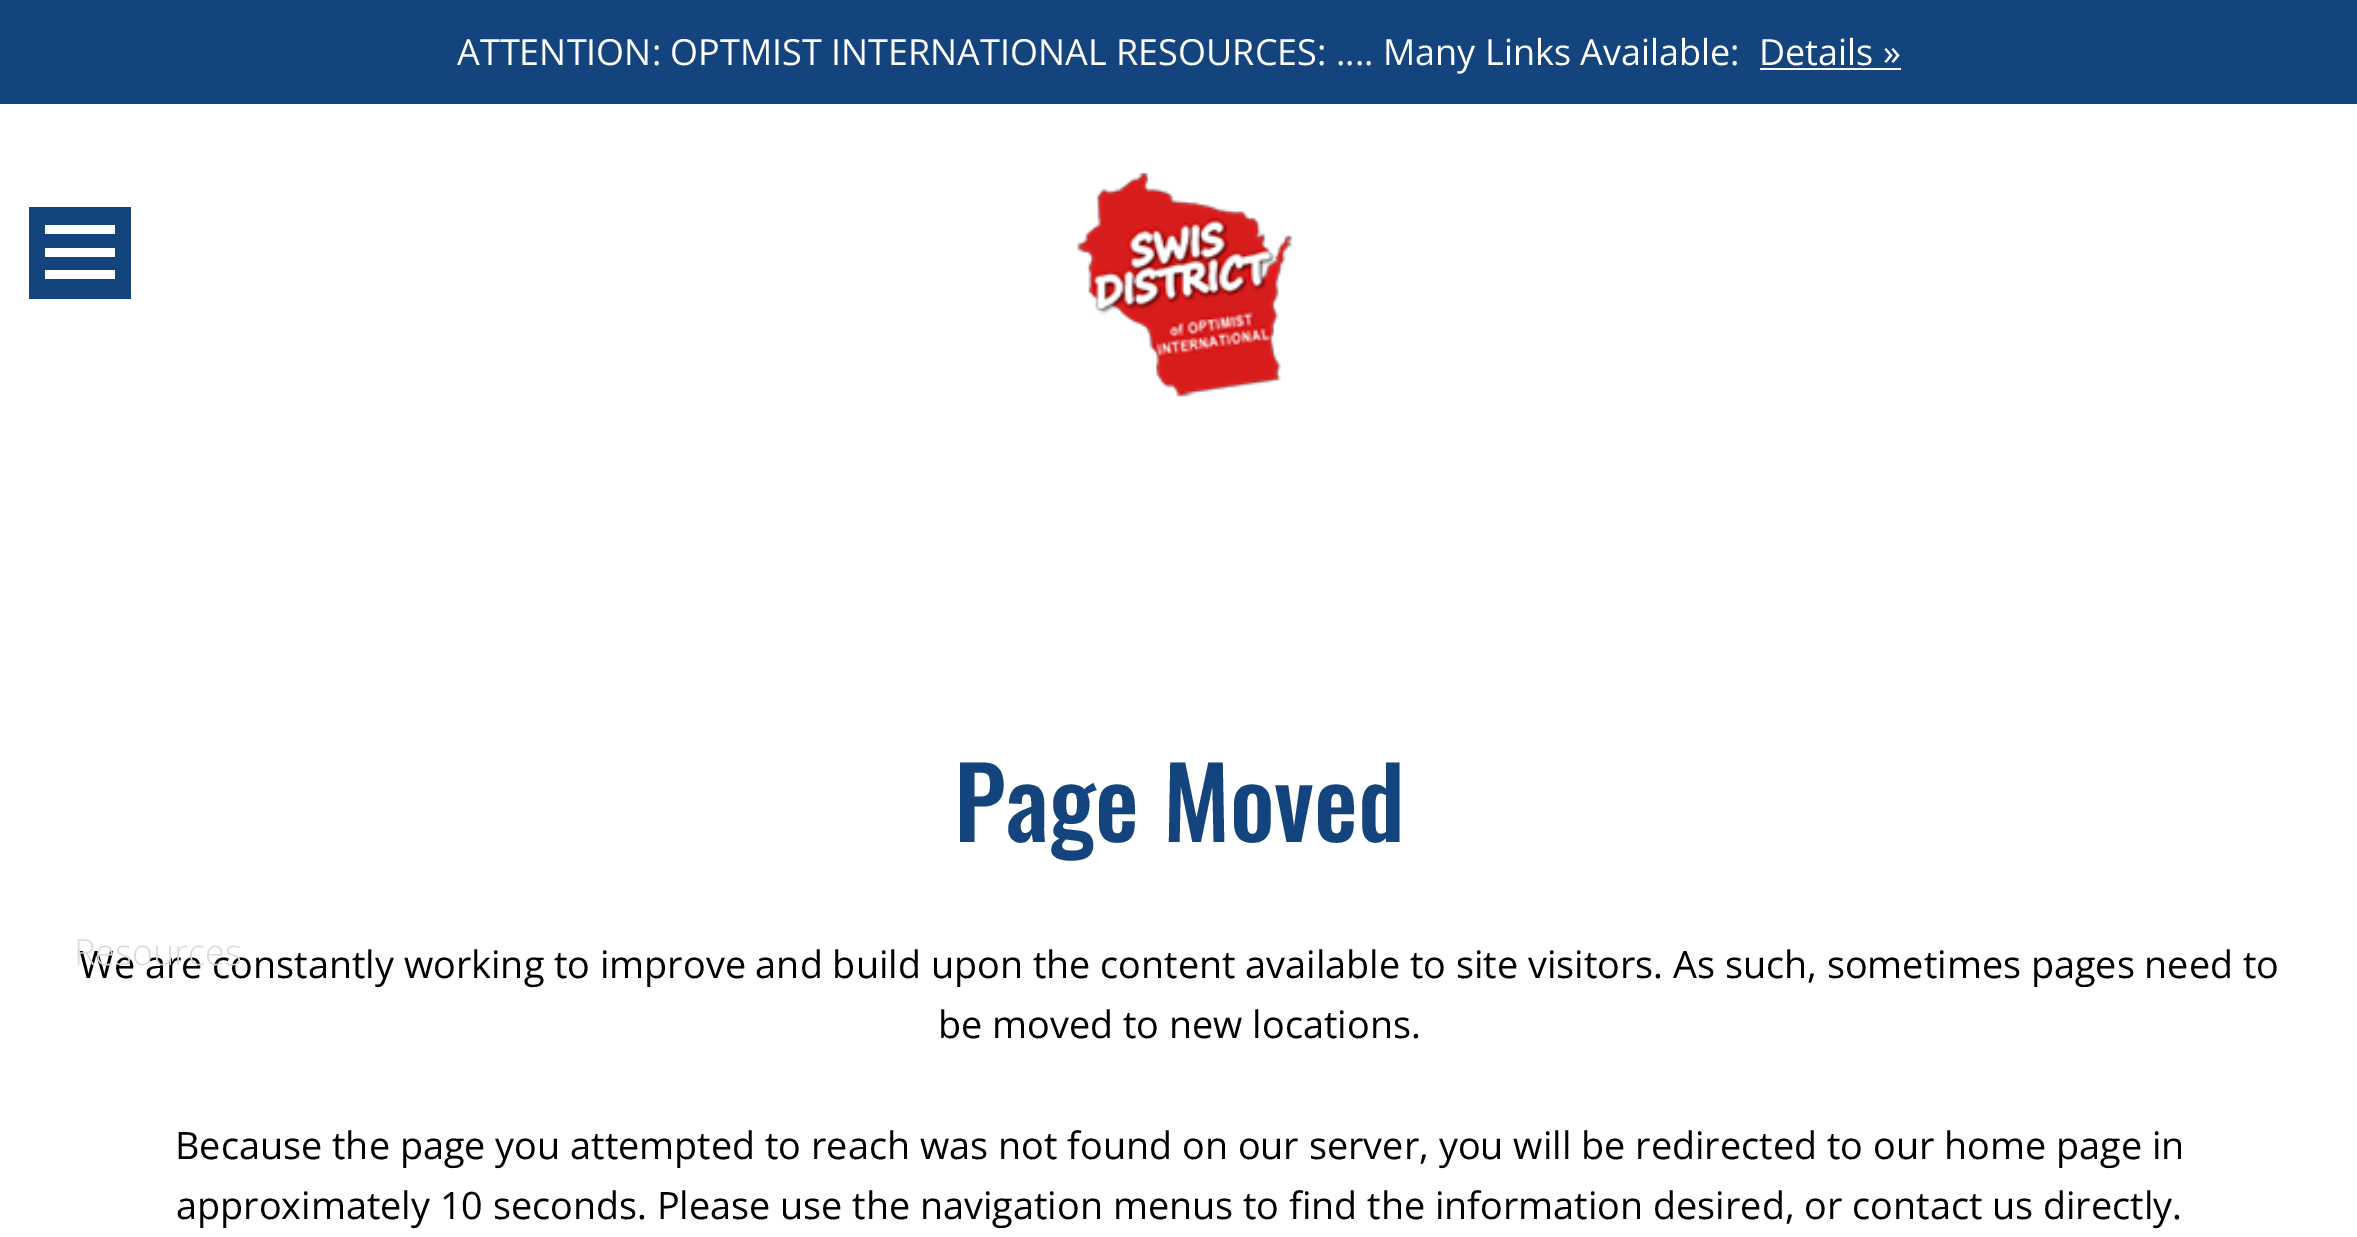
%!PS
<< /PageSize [2357 1237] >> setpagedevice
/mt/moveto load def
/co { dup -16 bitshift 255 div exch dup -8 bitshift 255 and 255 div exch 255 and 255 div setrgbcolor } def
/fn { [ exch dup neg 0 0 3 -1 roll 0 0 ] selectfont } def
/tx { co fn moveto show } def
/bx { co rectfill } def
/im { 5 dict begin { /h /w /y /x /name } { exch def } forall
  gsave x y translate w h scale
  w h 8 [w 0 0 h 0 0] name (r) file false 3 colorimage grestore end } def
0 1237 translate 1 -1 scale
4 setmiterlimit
0 0 2357 1237 16#FFFFFF bx
0 0 2357 104 16#14447E bx
1760 68 141 2 16#FFFFFF bx
(media/1.raw) 1077 173 216 224 im
29 207 102 92 16#14447E bx
45 270 70 9 16#FFFFFF bx
45 248 70 9 16#FFFFFF bx
45 225 70 9 16#FFFFFF bx
(ATTENTION: OPTMIST INTERNATIONAL RESOURCES: .... Many Links Available:) 457 65 /OpenSans-Regular 36 16#FFFFFF tx
(Details ») 1759 65 /OpenSans-Regular 36 16#FFFFFF tx
(Page Moved) 954 842 /Oswald-Medium 98.25 16#14447E tx
/OpenSans-Regular 37.8 fn
16#000000 co
79 978 mt -.1 0 32 (We are constantly working to improve and build upon the content available to site visitors. As such, sometimes pages need to) widthshow
(Resources) 74 965 /OpenSans-Light 36 16#DADADA tx
(be moved to new locations.) 938 1038 /OpenSans-Regular 37.8 16#000000 tx
(Because the page you attempted to reach was not found on our server, you will be redirected to our home page in) 175 1159 /OpenSans-Regular 37.8 16#000000 tx
176 1219 mt -.1 0 32 (approximately 10 seconds. Please use the navigation menus to find the information desired, or contact us directly.) widthshow
showpage
